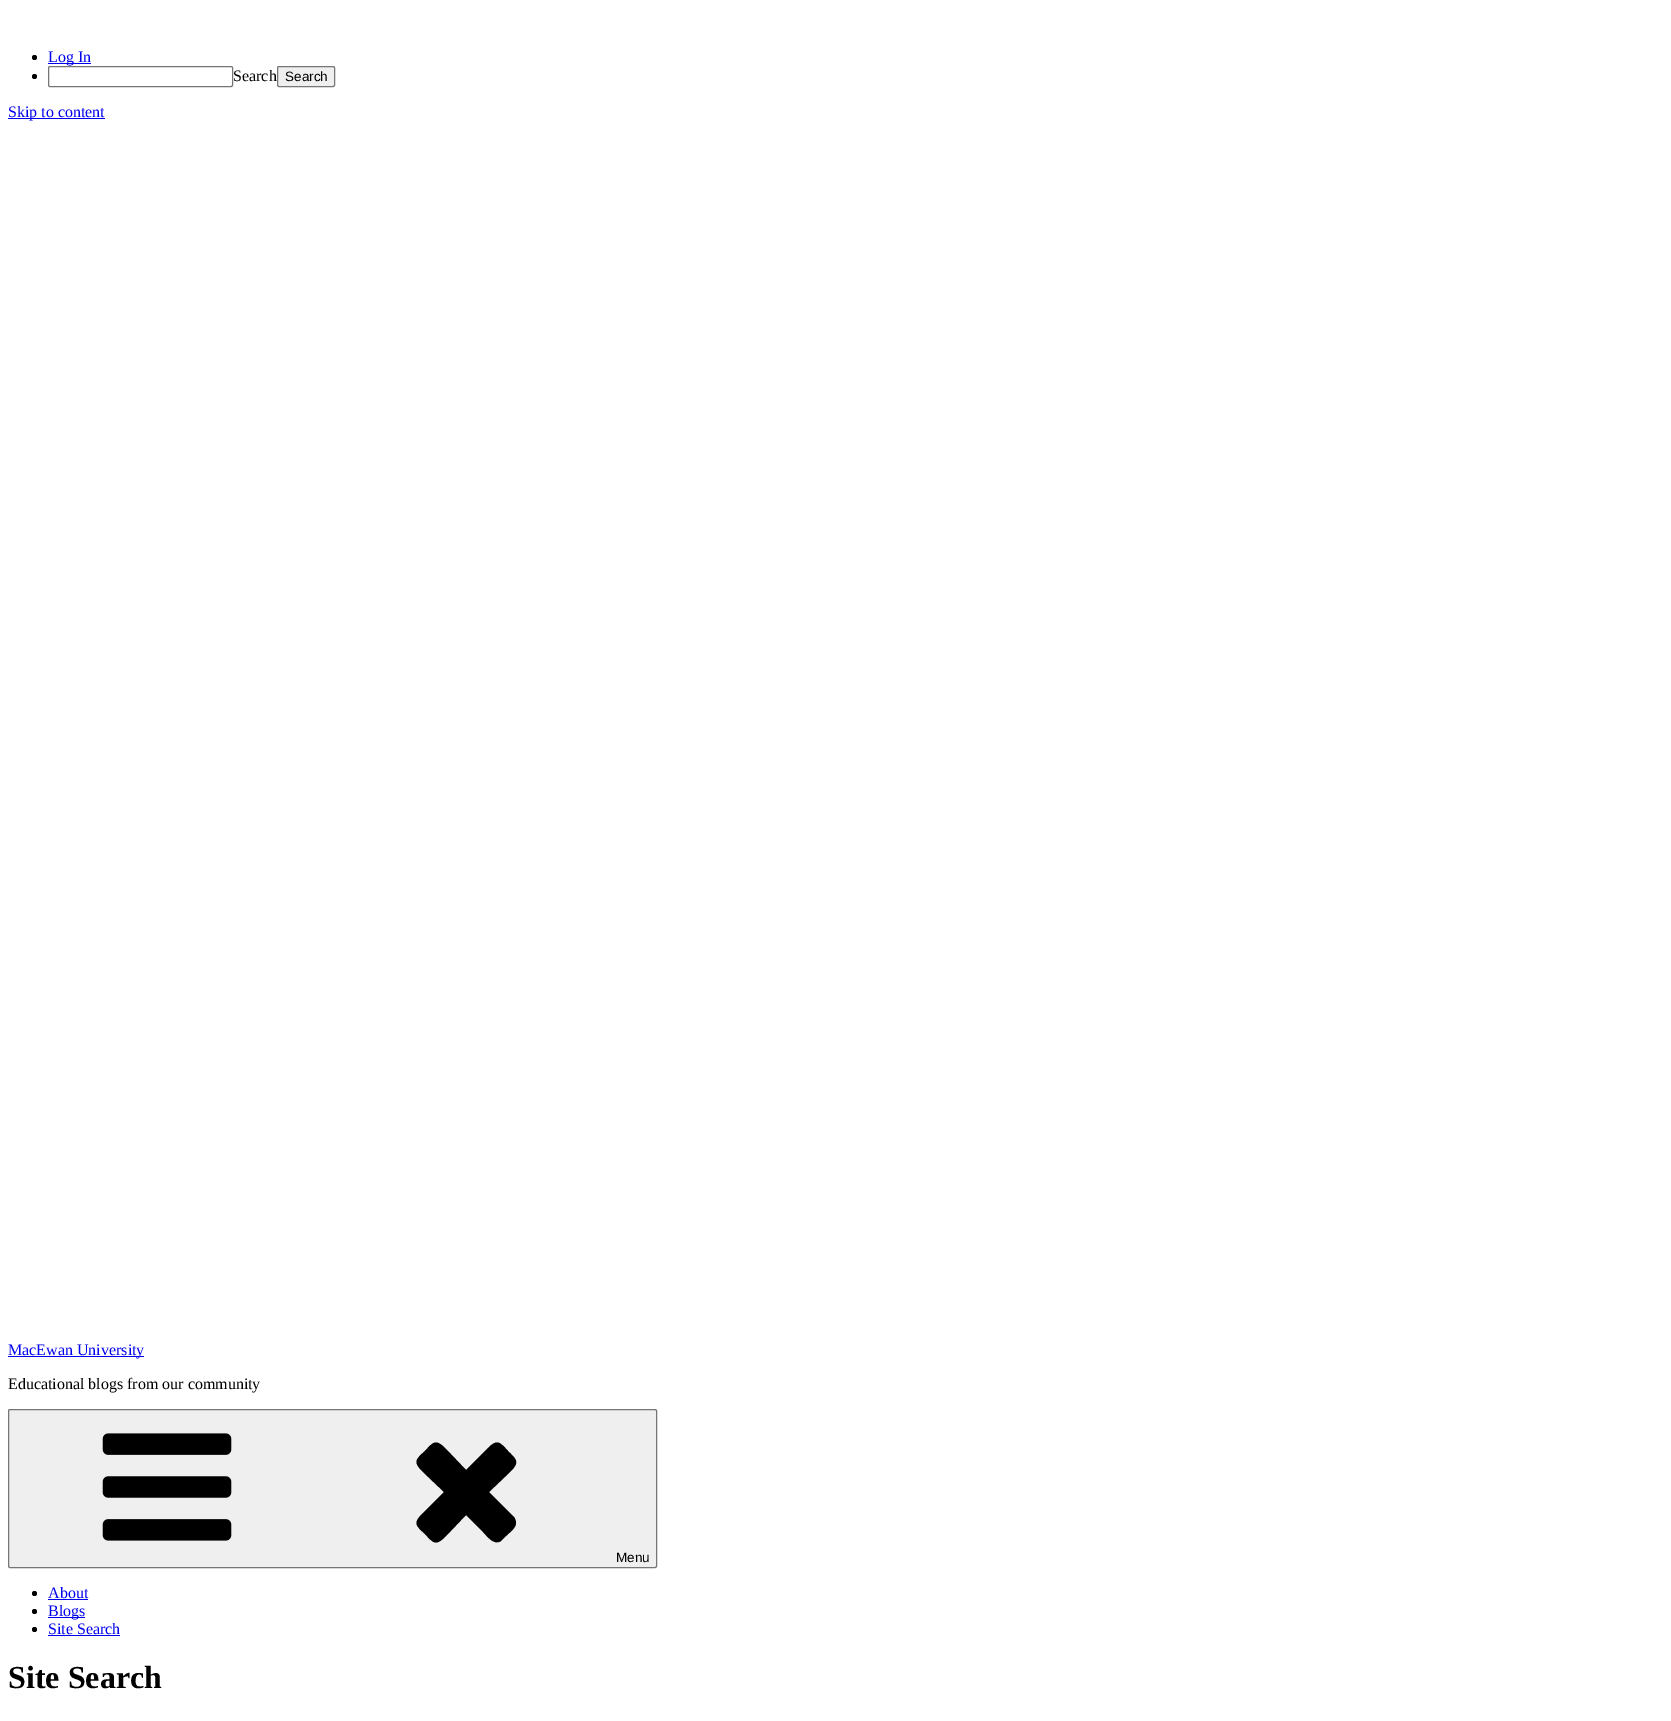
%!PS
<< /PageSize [1671 1721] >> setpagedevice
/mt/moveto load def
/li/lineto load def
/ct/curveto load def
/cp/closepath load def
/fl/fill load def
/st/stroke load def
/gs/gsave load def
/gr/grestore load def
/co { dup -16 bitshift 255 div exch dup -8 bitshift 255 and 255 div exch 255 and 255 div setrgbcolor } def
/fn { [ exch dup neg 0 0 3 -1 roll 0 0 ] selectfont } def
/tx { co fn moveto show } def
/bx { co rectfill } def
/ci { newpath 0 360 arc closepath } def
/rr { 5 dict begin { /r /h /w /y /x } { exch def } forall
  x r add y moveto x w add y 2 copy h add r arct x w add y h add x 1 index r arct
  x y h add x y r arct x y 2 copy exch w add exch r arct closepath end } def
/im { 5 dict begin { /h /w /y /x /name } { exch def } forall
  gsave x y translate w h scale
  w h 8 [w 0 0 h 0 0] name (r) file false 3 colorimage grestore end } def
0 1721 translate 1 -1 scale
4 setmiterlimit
0 0 1671 1721 16#FFFFFF bx
16#000000 co
34.5 57.5 2.5 ci fl
48 63 43 1 16#0000EE bx
16#000000 co
34.5 76.5 2.5 ci fl
16#767676 co
48.5 66.5 184 20 1.5 rr st
16#EFEFEF co
277.5 66.5 57 20 1.5 rr gs fl gr
16#767676 co
st
8 118 97 1 16#0000EE bx
8 1356 136 1 16#0000EE bx
16#EFEFEF co
8.5 1409.5 648 158 1.5 rr gs fl gr
16#767676 co
st
(media/1.raw) 102 1433 130 108 im
16#000000 co
516 1523 mt 516 1528 510 1532 506 1536 ct 501 1541 li 494 1546 487 1536 483 1532 ct 466 1515 li 446 1536 li 436 1546 434 1544 425 1534 ct 415 1525 413 1523 423 1513 ct 444 1492 li 423 1472 li 413 1462 415 1460 425 1451 ct 434 1441 436 1439 446 1449 ct 466 1470 li 487 1449 li 497 1439 499 1441 508 1451 ct 517 1460 520 1462 510 1472 ct 489 1492 li 514 1517 li 515 1519 516 1520 516 1523 ct cp fl
34.5 1593.5 2.5 ci fl
48 1599 40 1 16#0000EE bx
16#000000 co
34.5 1611.5 2.5 ci fl
48 1617 37 1 16#0000EE bx
16#000000 co
34.5 1629.5 2.5 ci fl
48 1635 72 1 16#0000EE bx
(Log In) 48 62 /LiberationSerif-Regular 16 16#0000EE tx
(Search) 233 81 /LiberationSerif-Regular 16 16#000000 tx
(Search) 285 81 /LiberationSans-Regular 13.5 16#000000 tx
(Skip to content) 8 117 /LiberationSerif-Regular 16 16#0000EE tx
(MacEwan University) 8 1355 /LiberationSerif-Regular 16 16#0000EE tx
(Educational blogs from our community) 8 1389 /LiberationSerif-Regular 16 16#000000 tx
(Menu) 616 1562 /LiberationSans-Regular 13.5 16#000000 tx
(About) 48 1598 /LiberationSerif-Regular 16 16#0000EE tx
(Blogs) 48 1616 /LiberationSerif-Regular 16 16#0000EE tx
(Site Search) 48 1634 /LiberationSerif-Regular 16 16#0000EE tx
(Site Search) 8 1688 /LiberationSerif-Bold 32 16#000000 tx
showpage
